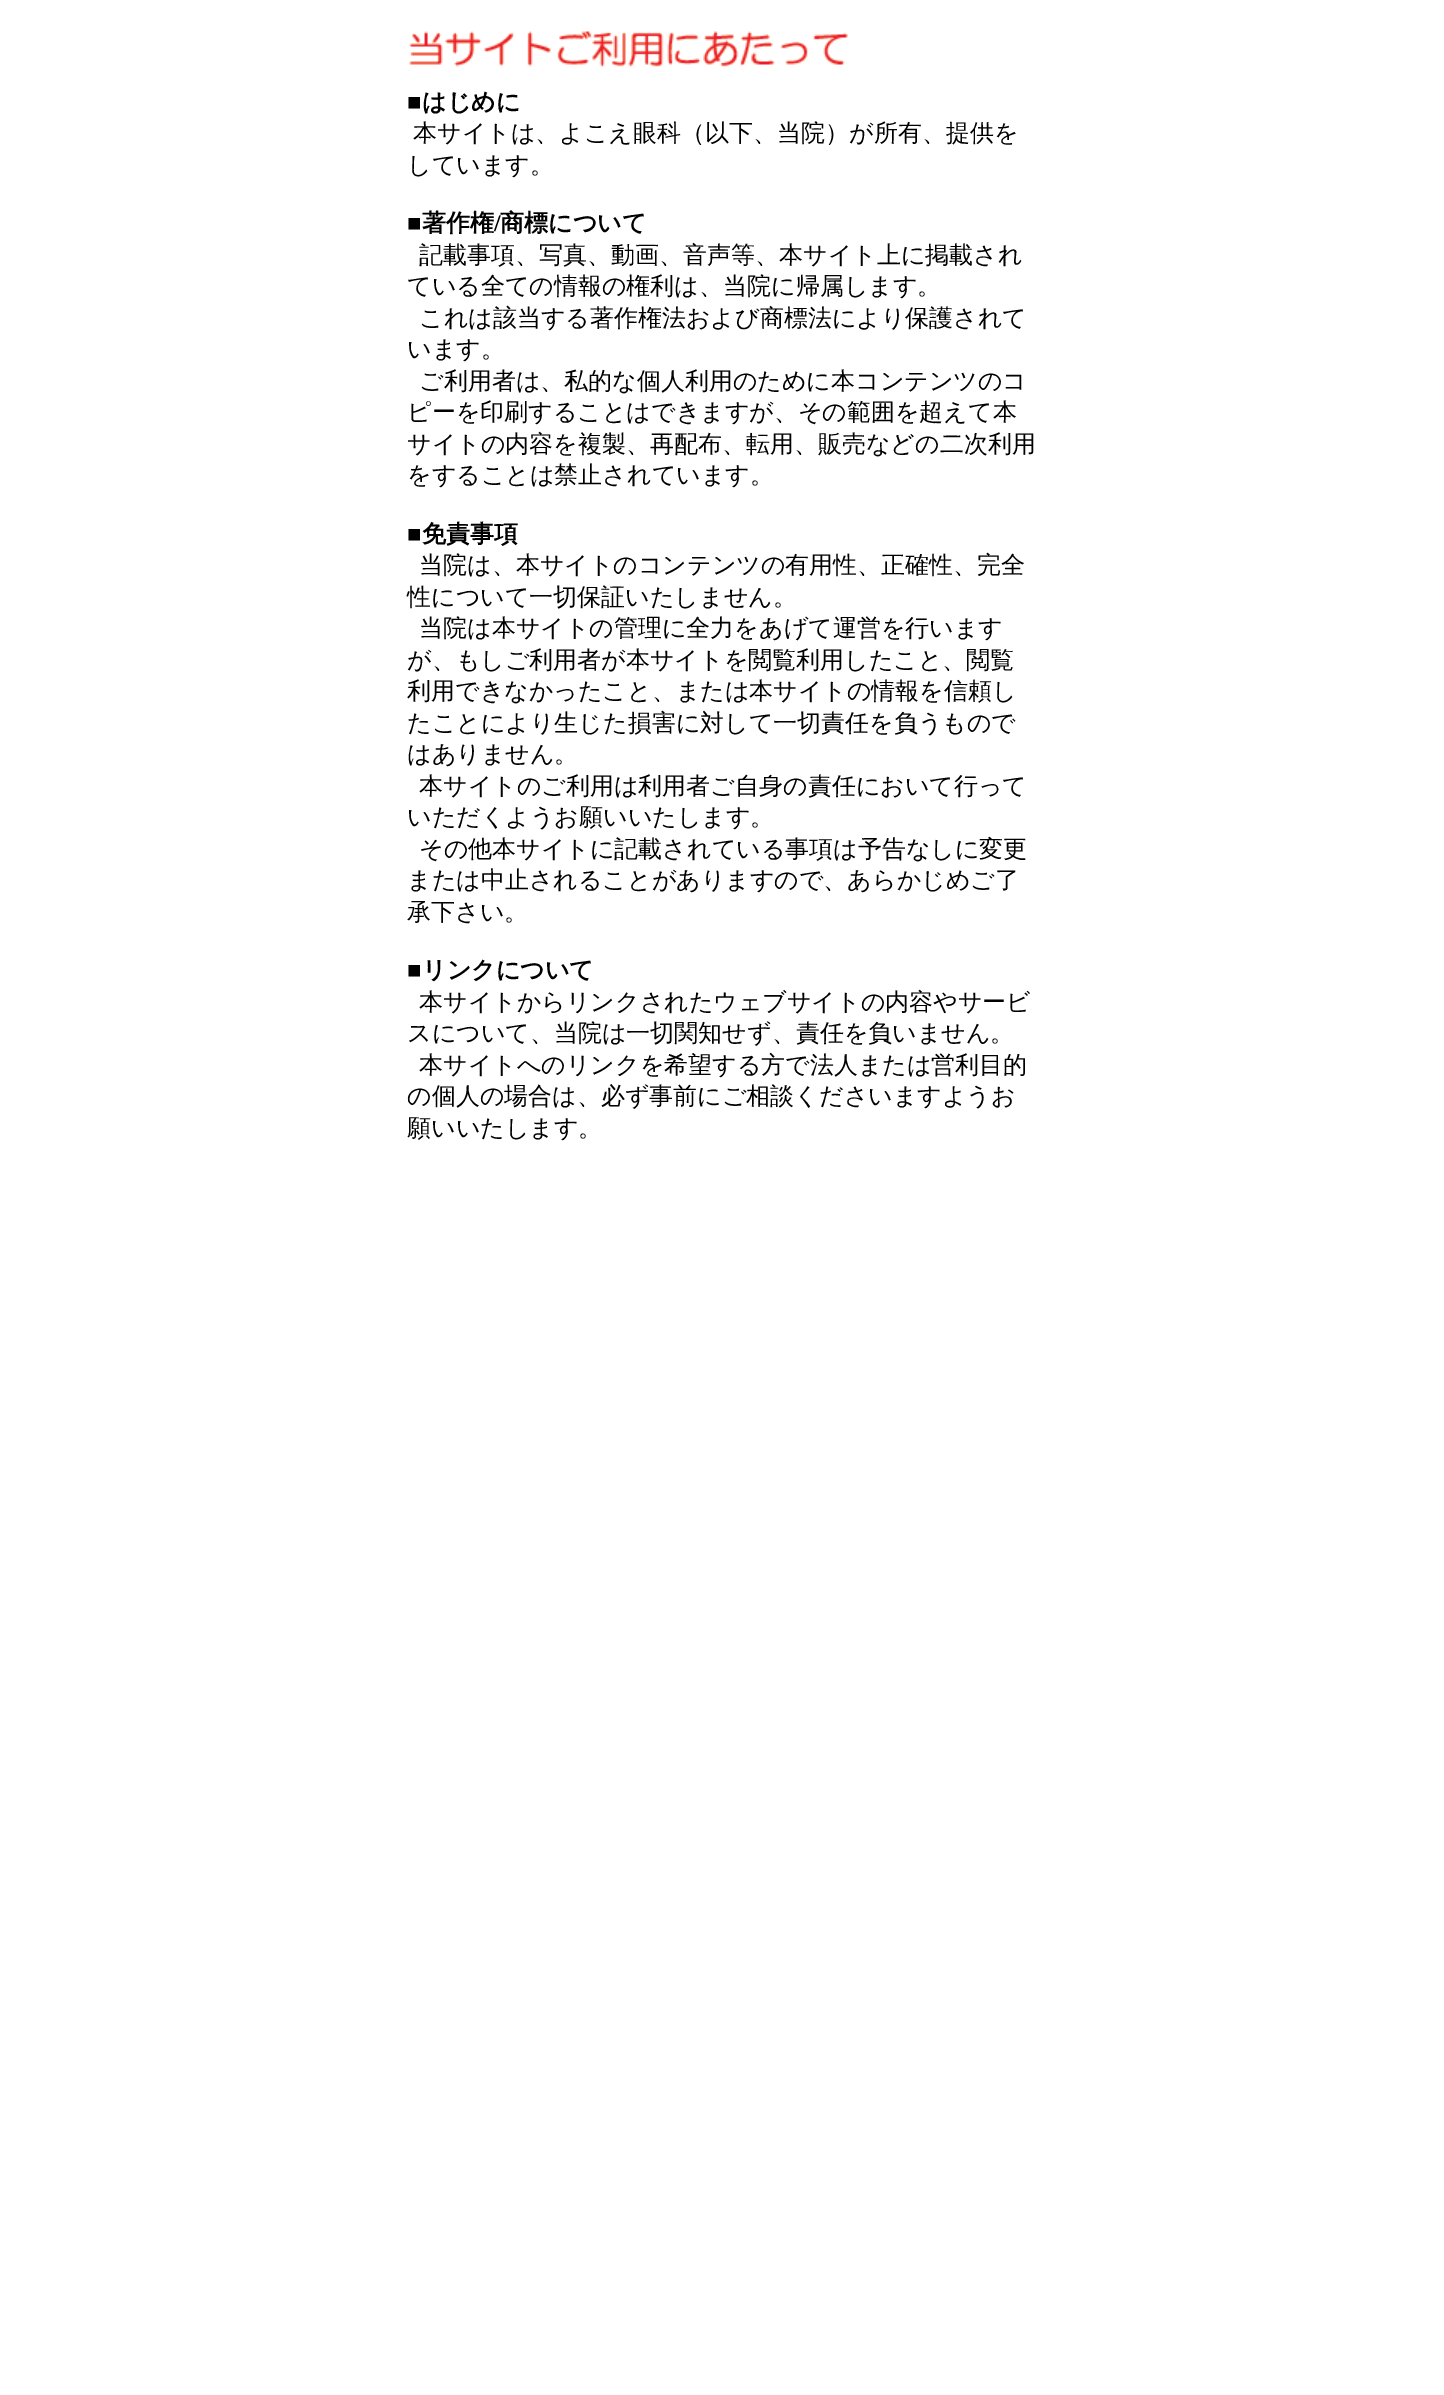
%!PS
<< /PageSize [1444 2395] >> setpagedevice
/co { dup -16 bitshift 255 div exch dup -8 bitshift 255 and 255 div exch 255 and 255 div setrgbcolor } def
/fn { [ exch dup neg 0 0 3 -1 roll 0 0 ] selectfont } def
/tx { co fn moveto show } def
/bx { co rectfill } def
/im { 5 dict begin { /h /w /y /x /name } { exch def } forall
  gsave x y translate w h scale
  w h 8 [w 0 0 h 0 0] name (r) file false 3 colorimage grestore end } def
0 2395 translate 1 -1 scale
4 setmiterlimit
0 0 1444 2395 16#FFFFFF bx
(media/1.raw) 409 31 439 36 im
(■) 407 110 /LiberationSerif-Regular 24 16#000000 tx
(はじめに) 422 110 /WenQuanYiZenHei-Bold 24 16#000000 tx
(本サイトは、よこえ眼科（以下、当院）が所有、提供を) 413 141 /WenQuanYiZenHei-Medium 24 16#000000 tx
(しています。) 407 173 /WenQuanYiZenHei-Medium 24 16#000000 tx
(■) 407 231 /LiberationSerif-Regular 24 16#000000 tx
(著作権) 422 231 /WenQuanYiZenHei-Bold 24 16#000000 tx
(/) 494 231 /LiberationSerif-Bold 24 16#000000 tx
(商標について) 500 231 /WenQuanYiZenHei-Bold 24 16#000000 tx
(記載事項、写真、動画、音声等、本サイト上に掲載され) 419 263 /WenQuanYiZenHei-Medium 24 16#000000 tx
(ている全ての情報の権利は、当院に帰属します。) 407 294 /WenQuanYiZenHei-Medium 24 16#000000 tx
(これは該当する著作権法および商標法により保護されて) 419 326 /WenQuanYiZenHei-Medium 24 16#000000 tx
(います。) 407 357 /WenQuanYiZenHei-Medium 24 16#000000 tx
(ご利用者は、私的な個人利用のために本コンテンツのコ) 419 389 /WenQuanYiZenHei-Medium 24 16#000000 tx
(ピーを印刷することはできますが、その範囲を超えて本) 407 420 /WenQuanYiZenHei-Medium 24 16#000000 tx
(サイトの内容を複製、再配布、転用、販売などの二次利用) 407 452 /WenQuanYiZenHei-Medium 24 16#000000 tx
(をすることは禁止されています。) 407 483 /WenQuanYiZenHei-Medium 24 16#000000 tx
(■) 407 542 /LiberationSerif-Regular 24 16#000000 tx
(免責事項) 422 542 /WenQuanYiZenHei-Bold 24 16#000000 tx
(当院は、本サイトのコンテンツの有用性、正確性、完全) 419 573 /WenQuanYiZenHei-Medium 24 16#000000 tx
(性について一切保証いたしません。) 407 605 /WenQuanYiZenHei-Medium 24 16#000000 tx
(当院は本サイトの管理に全力をあげて運営を行います) 419 636 /WenQuanYiZenHei-Medium 24 16#000000 tx
(が、もしご利用者が本サイトを閲覧利用したこと、閲覧) 407 668 /WenQuanYiZenHei-Medium 24 16#000000 tx
(利用できなかったこと、または本サイトの情報を信頼し) 407 699 /WenQuanYiZenHei-Medium 24 16#000000 tx
(たことにより生じた損害に対して一切責任を負うもので) 407 731 /WenQuanYiZenHei-Medium 24 16#000000 tx
(はありません。) 407 762 /WenQuanYiZenHei-Medium 24 16#000000 tx
(本サイトのご利用は利用者ご自身の責任において行って) 419 794 /WenQuanYiZenHei-Medium 24 16#000000 tx
(いただくようお願いいたします。) 407 825 /WenQuanYiZenHei-Medium 24 16#000000 tx
(その他本サイトに記載されている事項は予告なしに変更) 419 857 /WenQuanYiZenHei-Medium 24 16#000000 tx
(または中止されることがありますので、あらかじめご了) 407 888 /WenQuanYiZenHei-Medium 24 16#000000 tx
(承下さい。) 407 920 /WenQuanYiZenHei-Medium 24 16#000000 tx
(■) 407 978 /LiberationSerif-Regular 24 16#000000 tx
(リンクについて) 422 978 /WenQuanYiZenHei-Bold 24 16#000000 tx
(本サイトからリンクされたウェブサイトの内容やサービ) 419 1010 /WenQuanYiZenHei-Medium 24 16#000000 tx
(スについて、当院は一切関知せず、責任を負いません。) 407 1041 /WenQuanYiZenHei-Medium 24 16#000000 tx
(本サイトへのリンクを希望する方で法人または営利目的) 419 1073 /WenQuanYiZenHei-Medium 24 16#000000 tx
(の個人の場合は、必ず事前にご相談くださいますようお) 407 1104 /WenQuanYiZenHei-Medium 24 16#000000 tx
(願いいたします。) 407 1136 /WenQuanYiZenHei-Medium 24 16#000000 tx
showpage
